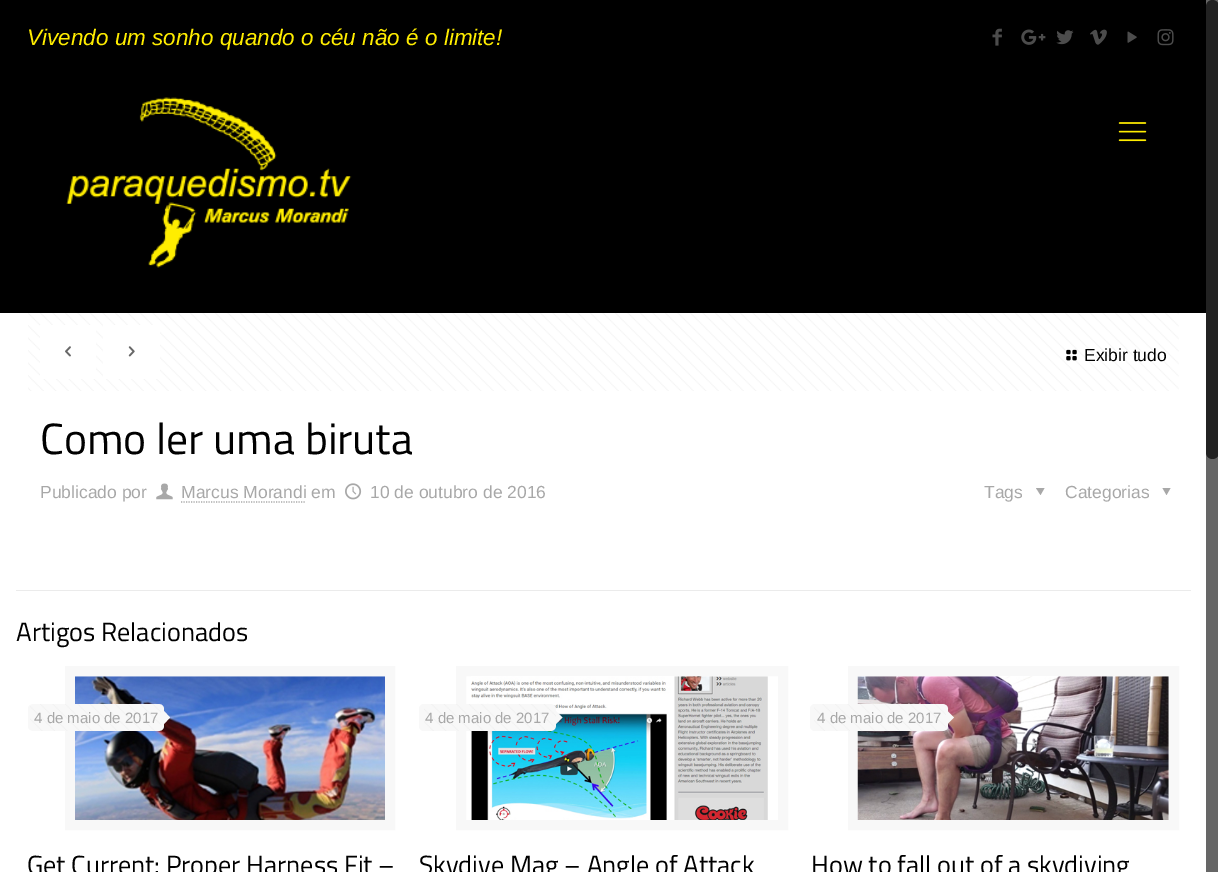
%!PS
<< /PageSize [1218 872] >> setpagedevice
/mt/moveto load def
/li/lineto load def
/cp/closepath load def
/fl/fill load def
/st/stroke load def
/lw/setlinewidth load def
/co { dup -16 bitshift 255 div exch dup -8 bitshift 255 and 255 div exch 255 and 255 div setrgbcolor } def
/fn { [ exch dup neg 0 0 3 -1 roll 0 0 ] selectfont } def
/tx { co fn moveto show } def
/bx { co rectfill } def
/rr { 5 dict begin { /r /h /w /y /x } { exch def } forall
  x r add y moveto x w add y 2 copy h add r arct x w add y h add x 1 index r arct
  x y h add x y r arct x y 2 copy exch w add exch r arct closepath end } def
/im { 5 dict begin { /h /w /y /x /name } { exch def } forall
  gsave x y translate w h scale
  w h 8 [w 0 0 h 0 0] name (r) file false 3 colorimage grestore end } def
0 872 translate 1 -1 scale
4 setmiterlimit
0 0 1218 872 16#FFFFFF bx
0 0 1206 313 16#000000 bx
(media/1.raw) 992 28 10 18 im
(media/2.raw) 1021 29 25 16 im
(media/3.raw) 1056 30 18 15 im
(media/4.raw) 1090 29 17 16 im
(media/5.raw) 1127 31 10 12 im
(media/6.raw) 1157 29 17 17 im
(media/7.raw) 66 97 286 171 im
(media/8.raw) 1118 122 29 20 im
(media/9.raw) 28 313 1151 78 im
40 325 56 54 16#FFFFFF bx
(media/10.raw) 65 346 6 11 im
103 325 57 54 16#FFFFFF bx
(media/11.raw) 128 346 7 11 im
(media/12.raw) 1066 349 11 12 im
(media/13.raw) 156 483 17 17 im
16#A8A8A8 co
1.2 lw
[1.25 1.25] 0 setdash
181 502 mt 306 502 li st
(media/14.raw) 345 483 17 17 im
1044.5 488 mt 1040.5 495 li 1036 488 li cp fl
1170.5 488 mt 1166.5 495 li 1162.5 488 li cp fl
16 590 1175 1 16#EBEBEB bx
16#F8F8F8 co
10 lw
[] 0 setdash
70 671 320 154 rectstroke
(media/15.raw) 75 676 310 144 im
28 704 136 27 5 rr fl
(media/16.raw) 30 704 131 27 im
164 724 mt 164 711 li 170 717.5 li cp fl
461 671 322 154 rectstroke
(media/17.raw) 471 676 297 144 im
419 704 137 27 5 rr fl
(media/18.raw) 424 704 132 27 im
556 724 mt 556 711 li 562.5 717.5 li cp fl
853 671 321 154 rectstroke
(media/19.raw) 857 676 312 144 im
810 704 138 27 5 rr fl
(media/20.raw) 814 704 132 27 im
947.5 724 mt 947.5 711 li 954 717.5 li cp fl
1206 0 12 872 16#666666 bx
16#222222 co
1206 0 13 459 6.5 rr fl
(Vivendo um sonho quando o céu não é o limite!) 27 45 /LiberationSans-Italic 22.5 16#FFED00 tx
(Exibir tudo) 1084 361 /LiberationSans-Regular 17.5 16#000000 tx
(Como ler uma biruta) 40 454 /TitilliumWeb-Regular 43.75 16#000000 tx
(Publicado por) 40 498 /LiberationSans-Regular 17.5 16#A8A8A8 tx
(Marcus Morandi em) 181 498 /LiberationSans-Regular 17.5 16#A8A8A8 tx
(10 de outubro de 2016) 370 498 /LiberationSans-Regular 17.5 16#A8A8A8 tx
(Tags) 984 498 /LiberationSans-Regular 17.5 16#A8A8A8 tx
(Categorias) 1065 498 /LiberationSans-Regular 17.5 16#A8A8A8 tx
(Artigos Relacionados) 16 641 /TitilliumWeb-Regular 26.25 16#000000 tx
(4 de maio de 2017) 34 723 /LiberationSans-Regular 15 16#A8A8A8 tx
(Get Current: Proper Harness Fit –) 27 874 /TitilliumWeb-Regular 26.25 16#000000 tx
(4 de maio de 2017) 425 723 /LiberationSans-Regular 15 16#A8A8A8 tx
(Skydive Mag – Angle of Attack) 419 874 /TitilliumWeb-Regular 26.25 16#000000 tx
(4 de maio de 2017) 817 723 /LiberationSans-Regular 15 16#A8A8A8 tx
(How to fall out of a skydiving) 811 874 /TitilliumWeb-Regular 26.25 16#000000 tx
showpage
